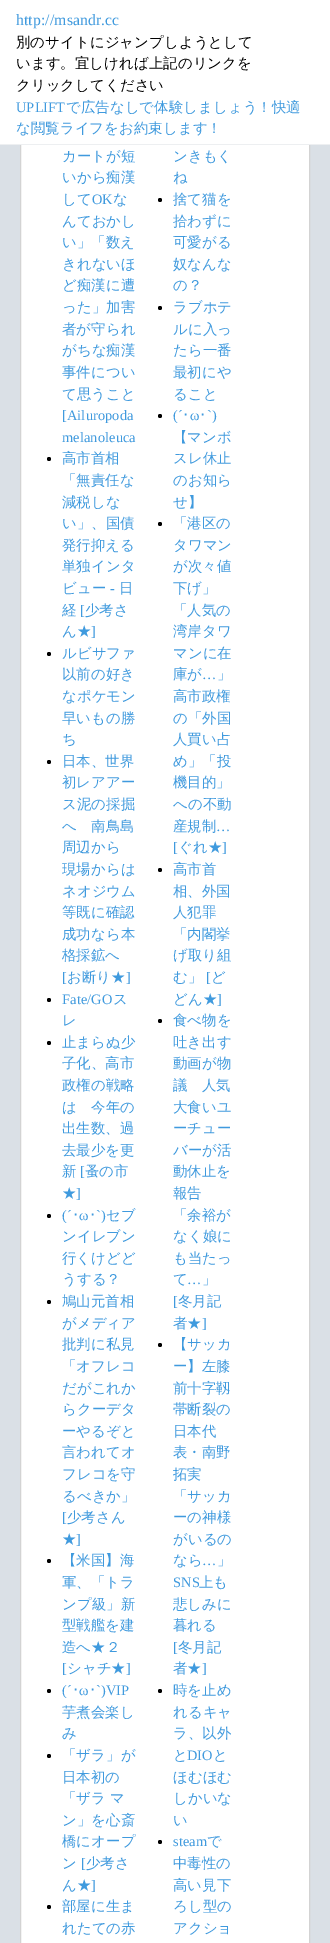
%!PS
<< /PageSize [330 1943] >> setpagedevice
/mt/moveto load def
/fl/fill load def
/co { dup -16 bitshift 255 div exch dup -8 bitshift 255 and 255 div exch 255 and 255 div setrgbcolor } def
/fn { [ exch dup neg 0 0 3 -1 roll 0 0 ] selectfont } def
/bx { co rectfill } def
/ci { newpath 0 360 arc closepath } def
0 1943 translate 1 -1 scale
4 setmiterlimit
0 0 330 1943 16#DAE0E6 bx
21 145 288 1798 16#FFFFFF bx
16#D3D3D3 co
20.5 70.5 289 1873 rectstroke
0 0 330 144 16#FFFFFF bx
0 144 330 1 16#EDEFF1 bx
16#000000 co
49 459 2 ci fl
49 654 2 ci fl
49 762 2 ci fl
49 1000 2 ci fl
49 1043 2 ci fl
49 1216 2 ci fl
49 1302 2 ci fl
49 1561 2 ci fl
49 1691 2 ci fl
49 1756 2 ci fl
49 1907 2 ci fl
160 200 2 ci fl
160 308 2 ci fl
160 416 2 ci fl
160 524 2 ci fl
160 870 2 ci fl
160 1021 2 ci fl
160 1345 2 ci fl
160 1691 2 ci fl
160 1842 2 ci fl
/LiberationSerif-Regular 15.75 fn
16#3F9ADE co
16 25 mt .1 0 (http://msandr.cc) ashow
/WenQuanYiZenHei-Medium 14.4 fn
16#000000 co
16 47 mt .1 0 (別のサイトにジャンプしようとして) ashow
16 68 mt .1 0 (います。宜しければ上記のリンクを) ashow
16 90 mt .1 0 (クリックしてください) ashow
/LiberationSerif-Regular 14.4 fn
16#3F9ADE co
16 112 mt .1 0 (UPLIFT) ashow
/WenQuanYiZenHei-Medium 14.4 fn
66 112 mt .1 0 (で広告なしで体験しましょう！快適) ashow
16 133 mt .1 0 (な閲覧ライフをお約束します！) ashow
62 161 mt .1 0 (カートが短) ashow
62 182 mt .1 0 (いから痴漢) ashow
62 204 mt .1 0 (して) ashow
/LiberationSerif-Regular 14.4 fn
92 204 mt .1 0 (OK) ashow
/WenQuanYiZenHei-Medium 14.4 fn
113 204 mt .1 0 (な) ashow
62 226 mt .1 0 (んておかし) ashow
62 247 mt .1 0 (い」「数え) ashow
62 269 mt .1 0 (きれないほ) ashow
62 290 mt .1 0 (ど痴漢に遭) ashow
62 312 mt .1 0 (った」加害) ashow
62 334 mt .1 0 (者が守られ) ashow
62 355 mt .1 0 (がちな痴漢) ashow
62 377 mt .1 0 (事件につい) ashow
62 399 mt .1 0 (て思うこと) ashow
/LiberationSerif-Regular 14.4 fn
62 420 mt .1 0 ([Ailuropoda) ashow
62 442 mt .1 0 (melanoleuca) ashow
/WenQuanYiZenHei-Medium 14.4 fn
62 463 mt .1 0 (高市首相) ashow
62 485 mt .1 0 (「無責任な) ashow
62 507 mt .1 0 (減税しな) ashow
62 528 mt .1 0 (い」、国債) ashow
62 550 mt .1 0 (発行抑える) ashow
62 571 mt .1 0 (単独インタ) ashow
62 593 mt .1 0 (ビュー) ashow
/LiberationSerif-Regular 14.4 fn
110 593 mt .1 0 (-) ashow
/WenQuanYiZenHei-Medium 14.4 fn
119 593 mt .1 0 (日) ashow
62 615 mt .1 0 (経) ashow
/LiberationSerif-Regular 14.4 fn
80 615 mt .1 0 ([) ashow
/WenQuanYiZenHei-Medium 14.4 fn
85 615 mt .1 0 (少考さ) ashow
62 636 mt .1 0 (ん★) ashow
/LiberationSerif-Regular 14.4 fn
91 636 mt .1 0 (]) ashow
/WenQuanYiZenHei-Medium 14.4 fn
62 658 mt .1 0 (ルビサファ) ashow
62 679 mt .1 0 (以前の好き) ashow
62 701 mt .1 0 (なポケモン) ashow
62 723 mt .1 0 (早いもの勝) ashow
62 744 mt .1 0 (ち) ashow
62 766 mt .1 0 (日本、世界) ashow
62 787 mt .1 0 (初レアアー) ashow
62 809 mt .1 0 (ス泥の採掘) ashow
62 831 mt .1 0 (へ　南鳥島) ashow
62 852 mt .1 0 (周辺から) ashow
62 874 mt .1 0 (現場からは) ashow
62 896 mt .1 0 (ネオジウム) ashow
62 917 mt .1 0 (等既に確認) ashow
62 939 mt .1 0 (成功なら本) ashow
62 960 mt .1 0 (格採鉱へ) ashow
/LiberationSerif-Regular 14.4 fn
62 982 mt .1 0 ([) ashow
/WenQuanYiZenHei-Medium 14.4 fn
67 982 mt .1 0 (お断り★) ashow
/LiberationSerif-Regular 14.4 fn
126 982 mt .1 0 (]) ashow
62 1004 mt .1 0 (Fate/GO) ashow
/WenQuanYiZenHei-Medium 14.4 fn
113 1004 mt .1 0 (ス) ashow
62 1025 mt .1 0 (レ) ashow
62 1047 mt .1 0 (止まらぬ少) ashow
62 1068 mt .1 0 (子化、高市) ashow
62 1090 mt .1 0 (政権の戦略) ashow
62 1112 mt .1 0 (は　今年の) ashow
62 1133 mt .1 0 (出生数、過) ashow
62 1155 mt .1 0 (去最少を更) ashow
62 1176 mt .1 0 (新) ashow
/LiberationSerif-Regular 14.4 fn
80 1176 mt .1 0 ([) ashow
/WenQuanYiZenHei-Medium 14.4 fn
85 1176 mt .1 0 (蚤の市) ashow
62 1198 mt .1 0 (★) ashow
/LiberationSerif-Regular 14.4 fn
76 1198 mt .1 0 (]) ashow
62 1220 mt .1 0 (\(´) ashow
/IPAPGothic-Regular 14.4 fn
72 1220 mt .1 0 (･) ashow
/LiberationSerif-Regular 14.4 fn
79 1220 mt .1 0 (ω) ashow
/IPAPGothic-Regular 14.4 fn
89 1220 mt .1 0 (･) ashow
/LiberationSerif-Regular 14.4 fn
96 1220 mt .1 0 (`\)) ashow
/WenQuanYiZenHei-Medium 14.4 fn
106 1220 mt .1 0 (セブ) ashow
62 1241 mt .1 0 (ンイレブン) ashow
62 1263 mt .1 0 (行くけどど) ashow
62 1284 mt .1 0 (うする？) ashow
62 1306 mt .1 0 (鳩山元首相) ashow
62 1328 mt .1 0 (がメディア) ashow
62 1349 mt .1 0 (批判に私見) ashow
62 1371 mt .1 0 (「オフレコ) ashow
62 1393 mt .1 0 (だがこれか) ashow
62 1414 mt .1 0 (らクーデタ) ashow
62 1436 mt .1 0 (ーやるぞと) ashow
62 1457 mt .1 0 (言われてオ) ashow
62 1479 mt .1 0 (フレコを守) ashow
62 1501 mt .1 0 (るべきか」) ashow
/LiberationSerif-Regular 14.4 fn
62 1522 mt .1 0 ([) ashow
/WenQuanYiZenHei-Medium 14.4 fn
67 1522 mt .1 0 (少考さん) ashow
62 1544 mt .1 0 (★) ashow
/LiberationSerif-Regular 14.4 fn
76 1544 mt .1 0 (]) ashow
/WenQuanYiZenHei-Medium 14.4 fn
62 1565 mt .1 0 (【米国】海) ashow
62 1587 mt .1 0 (軍、「トラ) ashow
62 1609 mt .1 0 (ンプ級」新) ashow
62 1630 mt .1 0 (型戦艦を建) ashow
62 1652 mt .1 0 (造へ★２) ashow
/LiberationSerif-Regular 14.4 fn
62 1673 mt .1 0 ([) ashow
/WenQuanYiZenHei-Medium 14.4 fn
67 1673 mt .1 0 (シャチ★) ashow
/LiberationSerif-Regular 14.4 fn
126 1673 mt .1 0 (]) ashow
62 1695 mt .1 0 (\(´) ashow
/IPAPGothic-Regular 14.4 fn
72 1695 mt .1 0 (･) ashow
/LiberationSerif-Regular 14.4 fn
79 1695 mt .1 0 (ω) ashow
/IPAPGothic-Regular 14.4 fn
89 1695 mt .1 0 (･) ashow
/LiberationSerif-Regular 14.4 fn
96 1695 mt .1 0 (`\)VIP) ashow
/WenQuanYiZenHei-Medium 14.4 fn
62 1717 mt .1 0 (芋煮会楽し) ashow
62 1738 mt .1 0 (み) ashow
62 1760 mt .1 0 (「ザラ」が) ashow
62 1782 mt .1 0 (日本初の) ashow
62 1803 mt -1 0 32 .1 0 (「ザラ マ) awidthshow
62 1825 mt .1 0 (ン」を心斎) ashow
62 1846 mt .1 0 (橋にオープ) ashow
62 1868 mt .1 0 (ン) ashow
/LiberationSerif-Regular 14.4 fn
81 1868 mt .1 0 ([) ashow
/WenQuanYiZenHei-Medium 14.4 fn
86 1868 mt .1 0 (少考さ) ashow
62 1890 mt .1 0 (ん★) ashow
/LiberationSerif-Regular 14.4 fn
91 1890 mt .1 0 (]) ashow
/WenQuanYiZenHei-Medium 14.4 fn
62 1911 mt .1 0 (部屋に生ま) ashow
62 1933 mt .1 0 (れたての赤) ashow
173 161 mt .1 0 (ンきもく) ashow
173 182 mt .1 0 (ね) ashow
173 204 mt .1 0 (捨て猫を) ashow
173 226 mt .1 0 (拾わずに) ashow
173 247 mt .1 0 (可愛がる) ashow
173 269 mt .1 0 (奴なんな) ashow
173 290 mt .1 0 (の？) ashow
173 312 mt .1 0 (ラブホテ) ashow
173 334 mt .1 0 (ルに入っ) ashow
173 355 mt .1 0 (たら一番) ashow
173 377 mt .1 0 (最初にや) ashow
173 399 mt .1 0 (ること) ashow
/LiberationSerif-Regular 14.4 fn
173 420 mt .1 0 (\(´) ashow
/IPAPGothic-Regular 14.4 fn
182 420 mt .1 0 (･) ashow
/LiberationSerif-Regular 14.4 fn
190 420 mt .1 0 (ω) ashow
/IPAPGothic-Regular 14.4 fn
199 420 mt .1 0 (･) ashow
/LiberationSerif-Regular 14.4 fn
207 420 mt .1 0 (`\)) ashow
/WenQuanYiZenHei-Medium 14.4 fn
173 442 mt .1 0 (【マンボ) ashow
173 463 mt .1 0 (スレ休止) ashow
173 485 mt .1 0 (のお知ら) ashow
173 507 mt .1 0 (せ】) ashow
173 528 mt .1 0 (「港区の) ashow
173 550 mt .1 0 (タワマン) ashow
173 571 mt .1 0 (が次々値) ashow
173 593 mt .1 0 (下げ」) ashow
173 615 mt .1 0 (「人気の) ashow
173 636 mt .1 0 (湾岸タワ) ashow
173 658 mt .1 0 (マンに在) ashow
173 679 mt .1 0 (庫が) ashow
/LiberationSerif-Regular 14.4 fn
202 679 mt .1 0 (…) ashow
/WenQuanYiZenHei-Medium 14.4 fn
217 679 mt .1 0 (」) ashow
173 701 mt .1 0 (高市政権) ashow
173 723 mt .1 0 (の「外国) ashow
173 744 mt .1 0 (人買い占) ashow
173 766 mt .1 0 (め」「投) ashow
173 787 mt .1 0 (機目的」) ashow
173 809 mt .1 0 (への不動) ashow
173 831 mt .1 0 (産規制) ashow
/LiberationSerif-Regular 14.4 fn
216 831 mt .1 0 (…) ashow
173 852 mt .1 0 ([) ashow
/WenQuanYiZenHei-Medium 14.4 fn
178 852 mt .1 0 (ぐれ★) ashow
/LiberationSerif-Regular 14.4 fn
222 852 mt .1 0 (]) ashow
/WenQuanYiZenHei-Medium 14.4 fn
173 874 mt .1 0 (高市首) ashow
173 896 mt .1 0 (相、外国) ashow
173 917 mt .1 0 (人犯罪) ashow
173 939 mt .1 0 (「内閣挙) ashow
173 960 mt .1 0 (げ取り組) ashow
173 982 mt .1 0 (む」) ashow
/LiberationSerif-Regular 14.4 fn
206 982 mt .1 0 ([) ashow
/WenQuanYiZenHei-Medium 14.4 fn
211 982 mt .1 0 (ど) ashow
173 1004 mt .1 0 (どん★) ashow
/LiberationSerif-Regular 14.4 fn
217 1004 mt .1 0 (]) ashow
/WenQuanYiZenHei-Medium 14.4 fn
173 1025 mt .1 0 (食べ物を) ashow
173 1047 mt .1 0 (吐き出す) ashow
173 1068 mt .1 0 (動画が物) ashow
173 1090 mt .1 0 (議　人気) ashow
173 1112 mt .1 0 (大食いユ) ashow
173 1133 mt .1 0 (ーチュー) ashow
173 1155 mt .1 0 (バーが活) ashow
173 1176 mt .1 0 (動休止を) ashow
173 1198 mt .1 0 (報告) ashow
173 1220 mt .1 0 (「余裕が) ashow
173 1241 mt .1 0 (なく娘に) ashow
173 1263 mt .1 0 (も当たっ) ashow
173 1284 mt .1 0 (て) ashow
/LiberationSerif-Regular 14.4 fn
187 1284 mt .1 0 (…) ashow
/WenQuanYiZenHei-Medium 14.4 fn
202 1284 mt .1 0 (」) ashow
/LiberationSerif-Regular 14.4 fn
173 1306 mt .1 0 ([) ashow
/WenQuanYiZenHei-Medium 14.4 fn
178 1306 mt .1 0 (冬月記) ashow
173 1328 mt .1 0 (者★) ashow
/LiberationSerif-Regular 14.4 fn
202 1328 mt .1 0 (]) ashow
/WenQuanYiZenHei-Medium 14.4 fn
173 1349 mt .1 0 (【サッカ) ashow
173 1371 mt .1 0 (ー】左膝) ashow
173 1393 mt .1 0 (前十字靱) ashow
173 1414 mt .1 0 (帯断裂の) ashow
173 1436 mt .1 0 (日本代) ashow
173 1457 mt .1 0 (表・南野) ashow
173 1479 mt .1 0 (拓実) ashow
173 1501 mt .1 0 (「サッカ) ashow
173 1522 mt .1 0 (ーの神様) ashow
173 1544 mt .1 0 (がいるの) ashow
173 1565 mt .1 0 (なら) ashow
/LiberationSerif-Regular 14.4 fn
202 1565 mt .1 0 (…) ashow
/WenQuanYiZenHei-Medium 14.4 fn
217 1565 mt .1 0 (」) ashow
/LiberationSerif-Regular 14.4 fn
173 1587 mt .1 0 (SNS) ashow
/WenQuanYiZenHei-Medium 14.4 fn
199 1587 mt .1 0 (上も) ashow
173 1609 mt .1 0 (悲しみに) ashow
173 1630 mt .1 0 (暮れる) ashow
/LiberationSerif-Regular 14.4 fn
173 1652 mt .1 0 ([) ashow
/WenQuanYiZenHei-Medium 14.4 fn
178 1652 mt .1 0 (冬月記) ashow
173 1673 mt .1 0 (者★) ashow
/LiberationSerif-Regular 14.4 fn
202 1673 mt .1 0 (]) ashow
/WenQuanYiZenHei-Medium 14.4 fn
173 1695 mt .1 0 (時を止め) ashow
173 1717 mt .1 0 (れるキャ) ashow
173 1738 mt .1 0 (ラ、以外) ashow
173 1760 mt .1 0 (と) ashow
/LiberationSerif-Regular 14.4 fn
187 1760 mt .1 0 (DIO) ashow
/WenQuanYiZenHei-Medium 14.4 fn
213 1760 mt .1 0 (と) ashow
173 1782 mt .1 0 (ほむほむ) ashow
173 1803 mt .1 0 (しかいな) ashow
173 1825 mt .1 0 (い) ashow
/LiberationSerif-Regular 14.4 fn
173 1846 mt .1 0 (steam) ashow
/WenQuanYiZenHei-Medium 14.4 fn
207 1846 mt .1 0 (で) ashow
173 1868 mt .1 0 (中毒性の) ashow
173 1890 mt .1 0 (高い見下) ashow
173 1911 mt .1 0 (ろし型の) ashow
173 1933 mt .1 0 (アクショ) ashow
showpage
